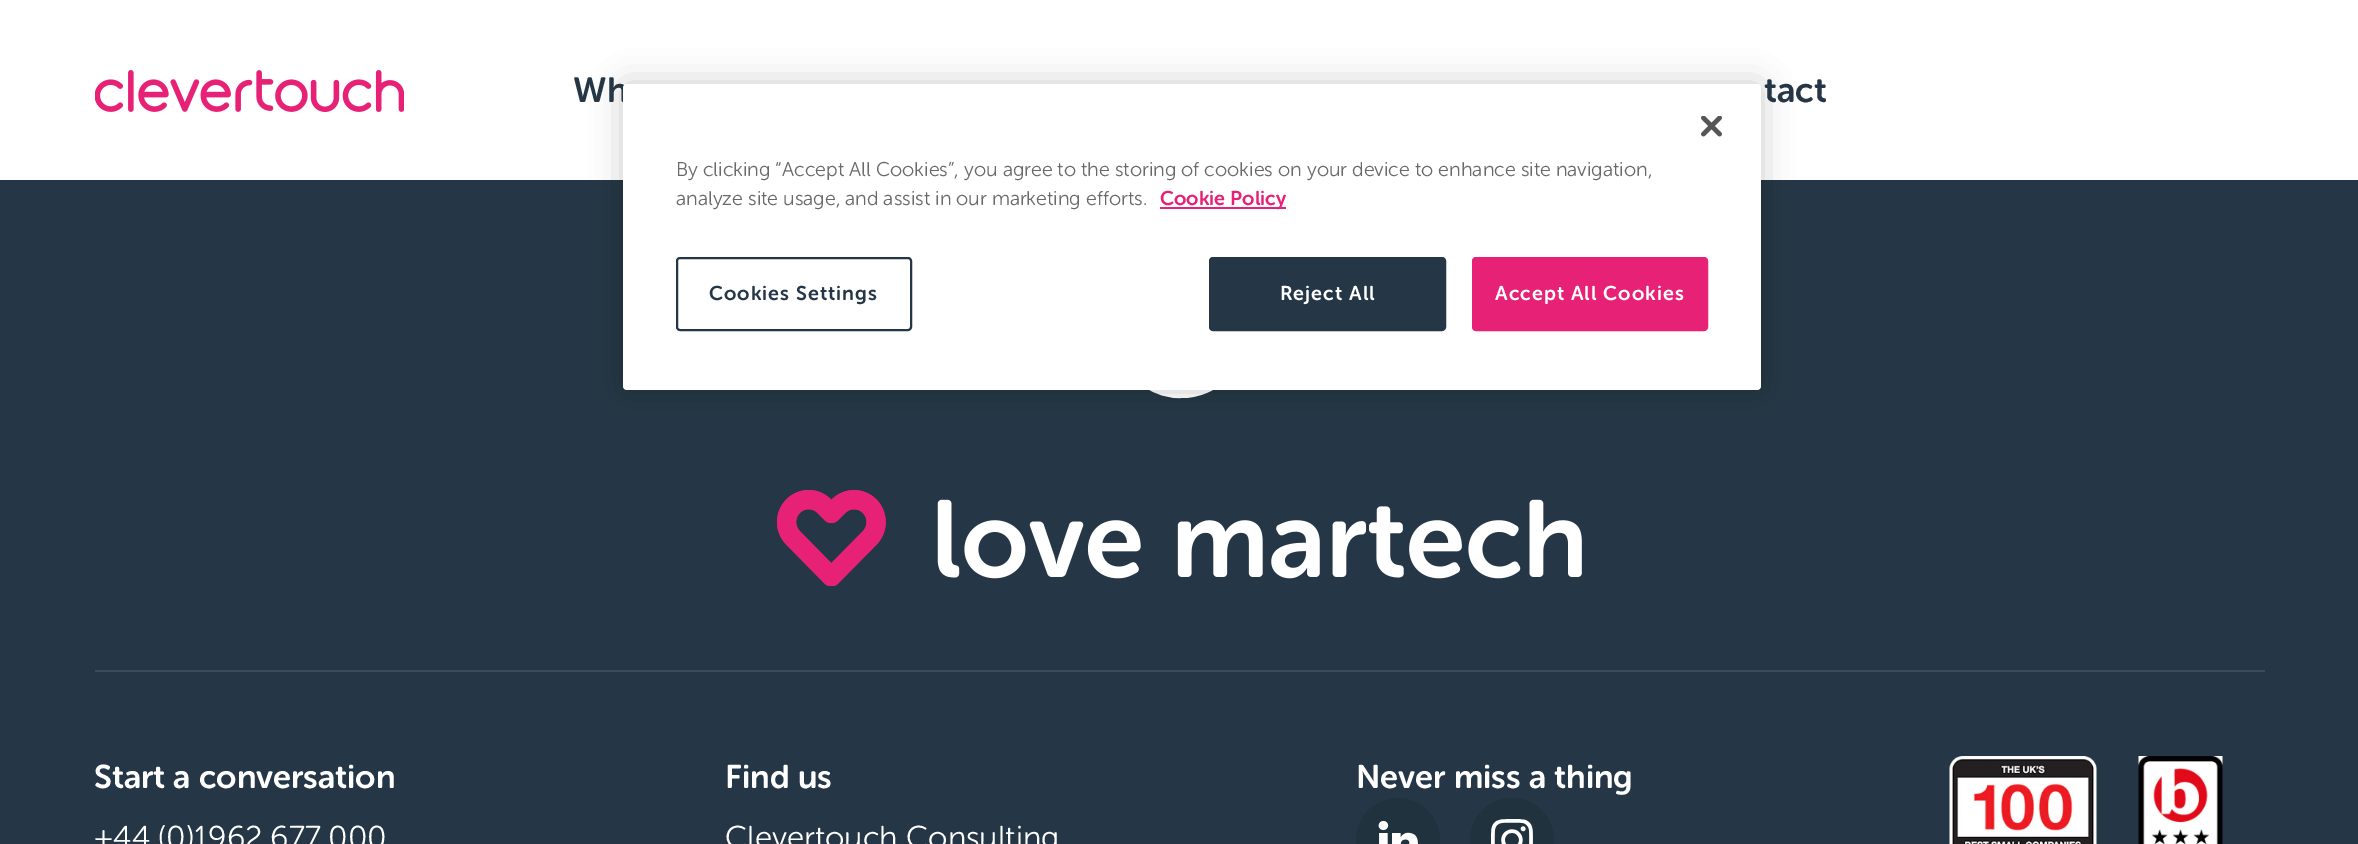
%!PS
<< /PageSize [2358 844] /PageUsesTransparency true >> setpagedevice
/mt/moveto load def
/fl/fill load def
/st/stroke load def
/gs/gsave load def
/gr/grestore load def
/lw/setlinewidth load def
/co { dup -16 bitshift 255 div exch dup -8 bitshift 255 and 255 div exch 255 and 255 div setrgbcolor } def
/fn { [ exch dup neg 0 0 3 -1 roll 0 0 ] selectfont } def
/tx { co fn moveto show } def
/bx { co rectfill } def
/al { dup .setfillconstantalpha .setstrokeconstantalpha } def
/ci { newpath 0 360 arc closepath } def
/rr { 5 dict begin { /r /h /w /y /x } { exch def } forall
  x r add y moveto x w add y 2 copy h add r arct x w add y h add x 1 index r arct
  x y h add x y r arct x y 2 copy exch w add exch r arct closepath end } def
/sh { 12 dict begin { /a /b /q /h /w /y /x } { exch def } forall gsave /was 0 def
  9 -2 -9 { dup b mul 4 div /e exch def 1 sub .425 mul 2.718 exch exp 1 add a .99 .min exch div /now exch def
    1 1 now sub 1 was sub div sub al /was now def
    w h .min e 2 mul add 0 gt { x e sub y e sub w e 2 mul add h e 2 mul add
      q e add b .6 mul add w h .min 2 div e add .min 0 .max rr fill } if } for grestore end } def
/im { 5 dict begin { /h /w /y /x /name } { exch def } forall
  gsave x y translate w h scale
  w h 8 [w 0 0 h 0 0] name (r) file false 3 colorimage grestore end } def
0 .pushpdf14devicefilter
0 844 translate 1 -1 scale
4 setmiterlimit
0 0 2358 844 16#253746 bx
0 0 2358 180 16#FFFFFF bx
(media/1.raw) 95 70 309 42 im
(media/3.raw) 1149 390 64 9 im
16#000000 co
623 84 1138 306 4 16 .2 sh
(media/4.raw) 777 490 805 96 im
95 670 2170 2 16#3B4B59 bx
16#21323F co
1398 840 42 ci fl
(media/5.raw) 1378 821 40 23 im
1512 840 42 ci fl
(media/6.raw) 1491 819 42 25 im
(media/7.raw) 1949 756 148 88 im
(media/8.raw) 2138 756 85 88 im
(Wh) 573 102 /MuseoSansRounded-SemiBold 35 16#253746 tx
(tact) 1764 102 /MuseoSansRounded-SemiBold 35 16#253746 tx
16#FFFFFF co
623 84 1138 306 4 rr fl
(media/2.raw) 1701 116 21 21 im
(By clicking “Accept All Cookies”, you agree to the storing of cookies on your device to enhance site navigation,) 676 176 /MuseoSansRounded-Light 19.9 16#696969 tx
(analyze site usage, and assist in our marketing efforts.) 676 205 /MuseoSansRounded-Light 19.9 16#696969 tx
1160 207 126 2 16#E72176 bx
(Cookie Policy) 1160 205 /MuseoSansRounded-SemiBold 19.9 16#E72176 tx
16#253746 co
2 lw
677 258 234 72 3 rr st
709 300 mt 1 0 (Cookies Settings) ashow
1210 258 235 72 3 rr gs fl gr
st
16#FFFFFF co
1280 300 mt 1 0 (Reject All) ashow
16#E72176 co
1473 258 234 72 3 rr gs fl gr
st
16#FFFFFF co
1495 300 mt 1 0 (Accept All Cookies) ashow
(Start a conversation) 94 788 /MuseoSansRounded-SemiBold 32.75 16#FFFFFF tx
(+44 \(0\)1962 677 000) 94 848 /MuseoSansRounded-Light 31.5 16#FFFFFF tx
(Find us) 725 788 /MuseoSansRounded-SemiBold 32.75 16#FFFFFF tx
(Clevertouch Consulting) 725 848 /MuseoSansRounded-Light 31.5 16#FFFFFF tx
(Never miss a thing) 1356 788 /MuseoSansRounded-SemiBold 32.75 16#FFFFFF tx
.poppdf14devicefilter showpage
